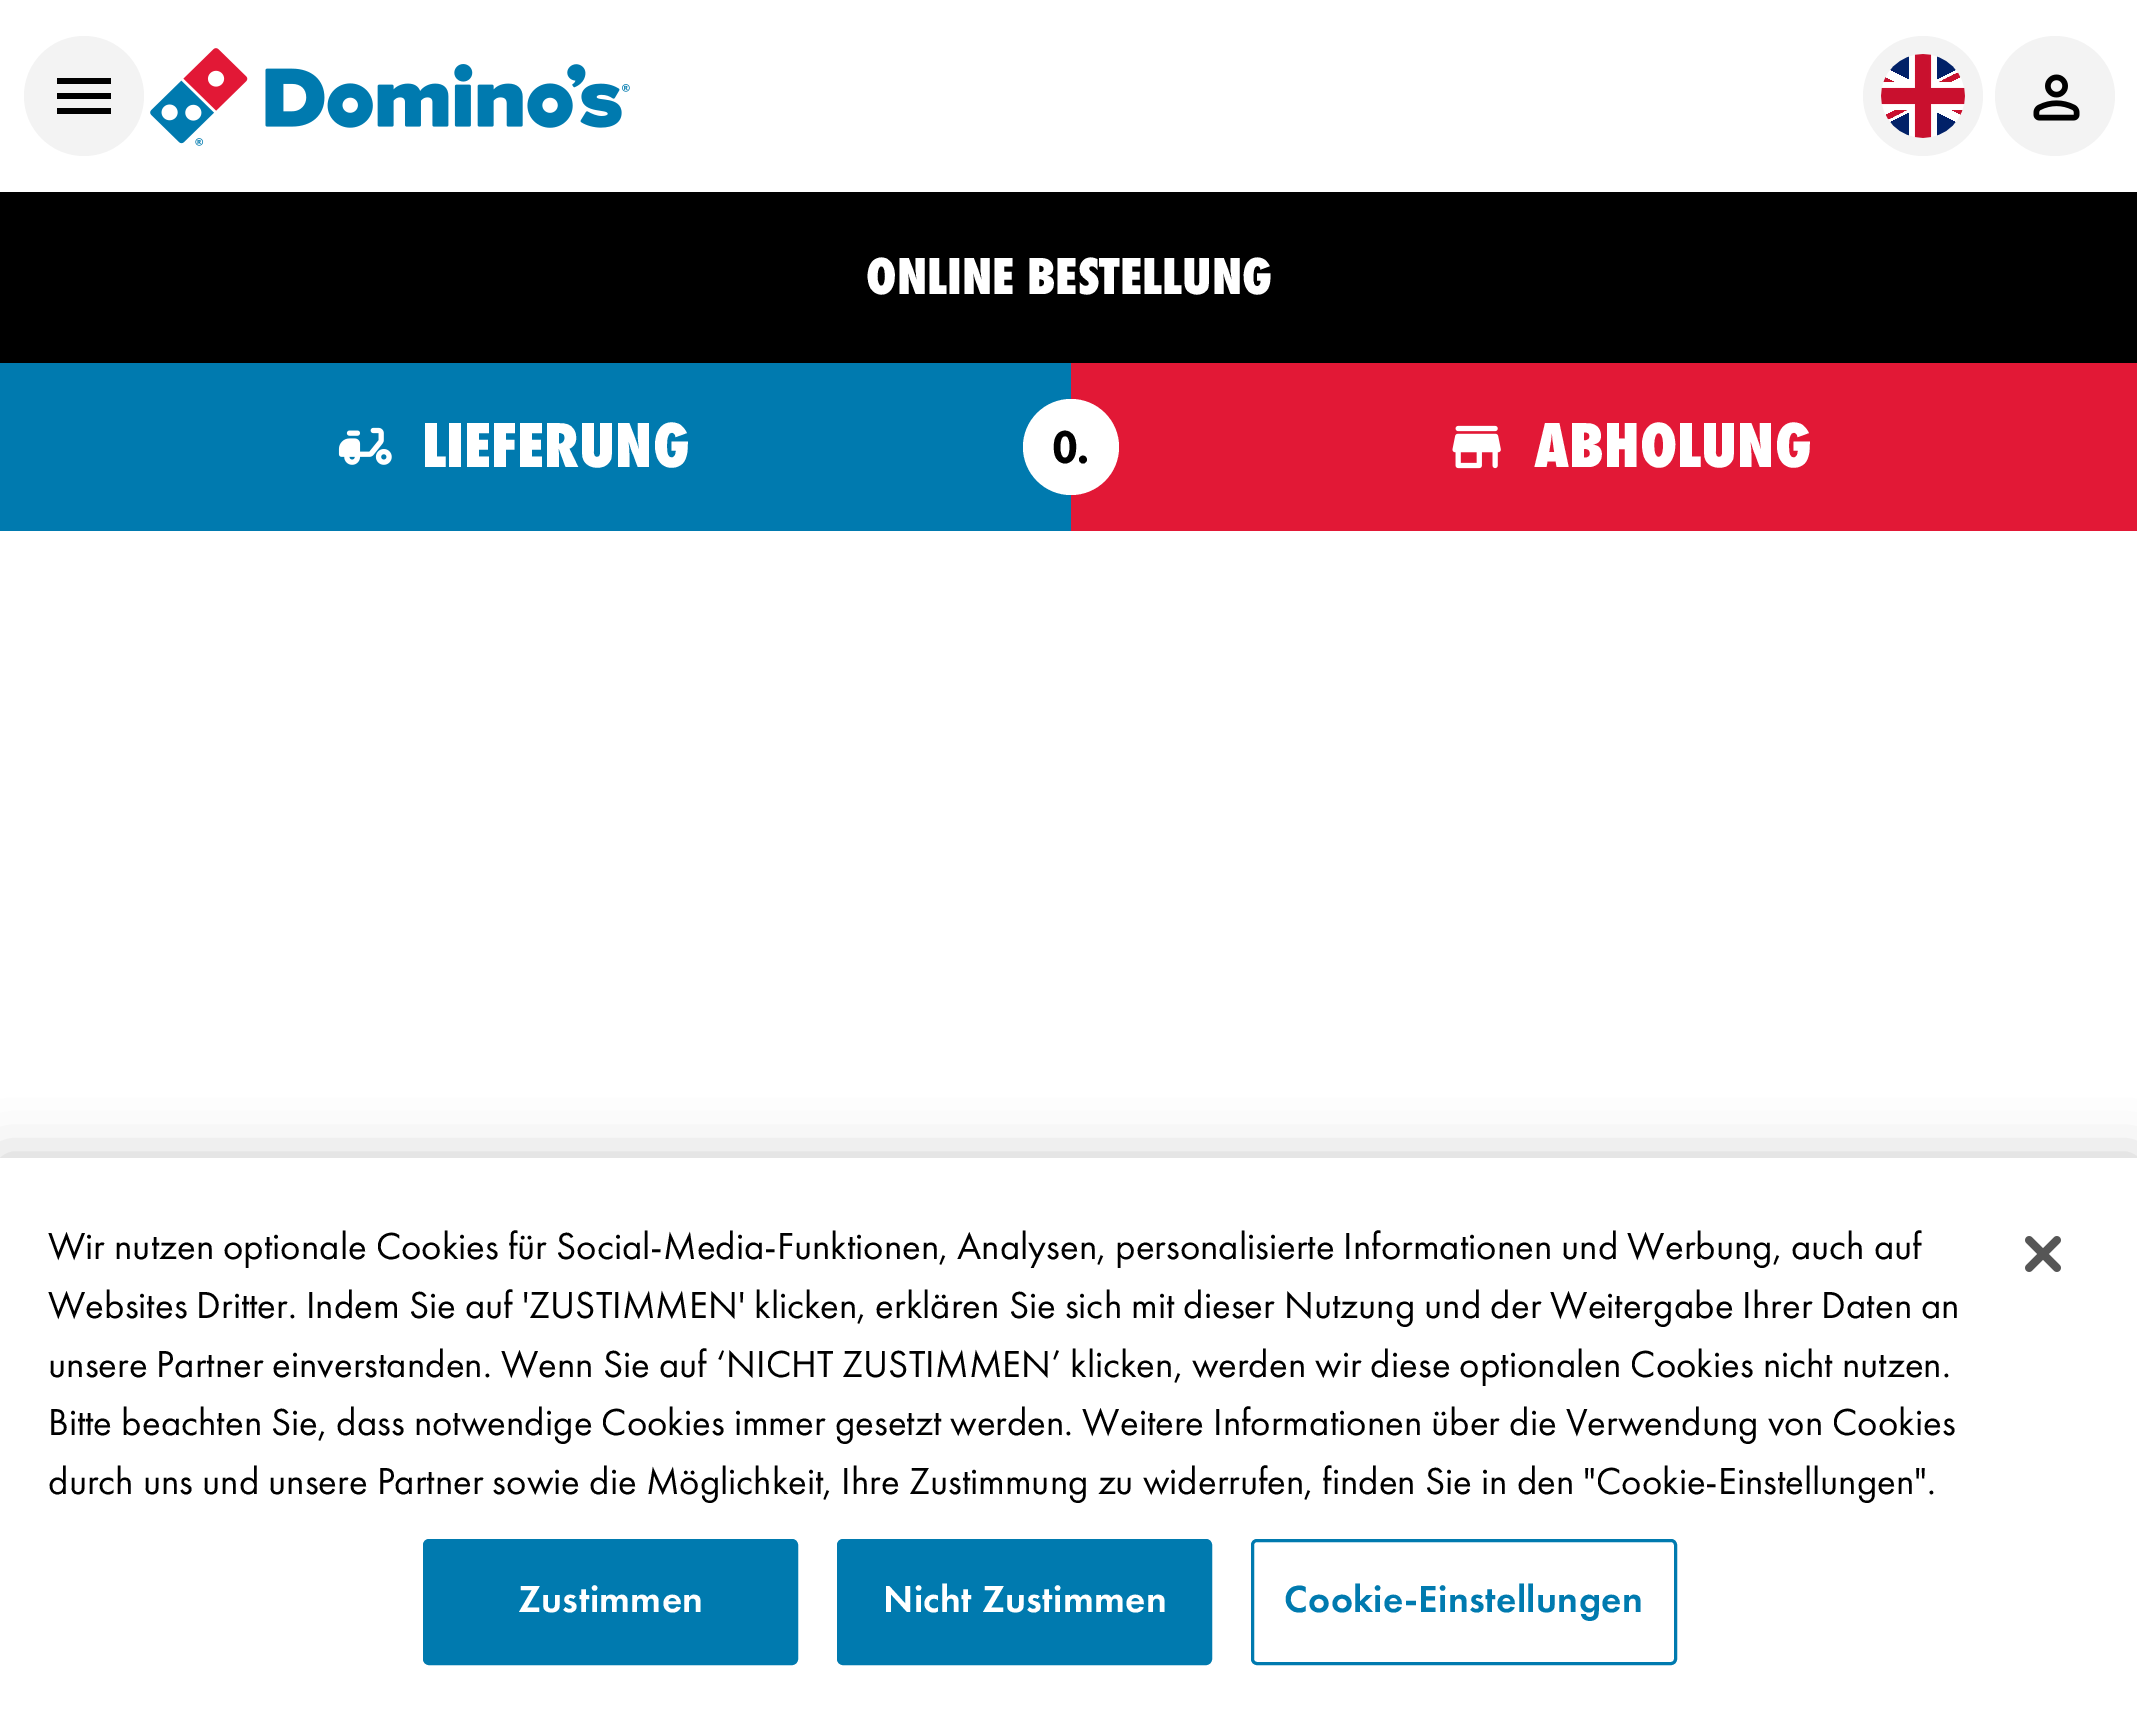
%!PS
<< /PageSize [2137 1713] /PageUsesTransparency true >> setpagedevice
/mt/moveto load def
/fl/fill load def
/st/stroke load def
/gs/gsave load def
/gr/grestore load def
/lw/setlinewidth load def
/co { dup -16 bitshift 255 div exch dup -8 bitshift 255 and 255 div exch 255 and 255 div setrgbcolor } def
/fn { [ exch dup neg 0 0 3 -1 roll 0 0 ] selectfont } def
/tx { co fn moveto show } def
/bx { co rectfill } def
/al { dup .setfillconstantalpha .setstrokeconstantalpha } def
/ci { newpath 0 360 arc closepath } def
/rr { 5 dict begin { /r /h /w /y /x } { exch def } forall
  x r add y moveto x w add y 2 copy h add r arct x w add y h add x 1 index r arct
  x y h add x y r arct x y 2 copy exch w add exch r arct closepath end } def
/sh { 12 dict begin { /a /b /q /h /w /y /x } { exch def } forall gsave /was 0 def
  9 -2 -9 { dup b mul 4 div /e exch def 1 sub .425 mul 2.718 exch exp 1 add a .99 .min exch div /now exch def
    1 1 now sub 1 was sub div sub al /was now def
    w h .min e 2 mul add 0 gt { x e sub y e sub w e 2 mul add h e 2 mul add
      q e add b .6 mul add w h .min 2 div e add .min 0 .max rr fill } if } for grestore end } def
/im { 5 dict begin { /h /w /y /x /name } { exch def } forall
  gsave x y translate w h scale
  w h 8 [w 0 0 h 0 0] name (r) file false 3 colorimage grestore end } def
0 .pushpdf14devicefilter
0 1713 translate 1 -1 scale
4 setmiterlimit
0 0 2137 1713 16#FFFFFF bx
16#F3F3F3 co
84 96 60 ci fl
(media/1.raw) 57 78 54 36 im
(media/2.raw) 150 48 480 98 im
1923 96 60 ci fl
(media/3.raw) 1881 54 84 84 im
2055 96 60 ci fl
(media/4.raw) 2033 74 47 47 im
0 192 2137 171 16#000000 bx
0 363 1071 168 16#007AAF bx
(media/5.raw) 338 427 54 38 im
1071 363 1066 168 16#E21836 bx
16#FFFFFF co
1071 447 48 ci fl
(media/6.raw) 1452 425 49 44 im
16#000000 co
0 1158 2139 555 0 27 .2 sh
0 1158 2137 555 16#FFFFFF bx
16#007AAF co
424.5 1540.5 372 123 4.5 rr gs fl gr
3 lw
st
838.5 1540.5 372 123 4.5 rr gs fl gr
st
1252.5 1540.5 423 123 4.5 rr st
(media/7.raw) 2025 1236 36 36 im
(ONLINE BESTELLUNG) 866 294 /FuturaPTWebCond-ExtraBold 54 16#FFFFFF tx
(LIEFERUNG) 422 467 /FuturaPTWebCond-ExtraBold 66 16#FFFFFF tx
/FuturaPTWebCond-Bold 48 fn
16#000000 co
1052 463 mt -1 0 (O.) ashow
(ABHOLUNG) 1534 467 /FuturaPTWebCond-ExtraBold 66 16#FFFFFF tx
(Wir nutzen optionale Cookies für Social-Media-Funktionen, Analysen, personalisierte Informationen und Werbung, auch auf) 48 1259 /FuturaPT-Regular 39 16#000000 tx
(Websites Dritter. Indem Sie auf 'ZUSTIMMEN' klicken, erklären Sie sich mit dieser Nutzung und der Weitergabe Ihrer Daten an) 48 1318 /FuturaPT-Regular 39 16#000000 tx
(unsere Partner einverstanden. Wenn Sie auf ‘NICHT ZUSTIMMEN’ klicken, werden wir diese optionalen Cookies nicht nutzen.) 48 1377 /FuturaPT-Regular 39 16#000000 tx
(Bitte beachten Sie, dass notwendige Cookies immer gesetzt werden. Weitere Informationen über die Verwendung von Cookies) 48 1435 /FuturaPT-Regular 39 16#000000 tx
(durch uns und unsere Partner sowie die Möglichkeit, Ihre Zustimmung zu widerrufen, finden Sie in den "Cookie-Einstellungen".) 48 1494 /FuturaPT-Regular 39 16#000000 tx
/FuturaPT-Medium 39 fn
16#FFFFFF co
518 1612 mt .4 0 (Zustimmen) ashow
883 1612 mt .4 0 (Nicht Zustimmen) ashow
16#007AAF co
1284 1612 mt .4 0 (Cookie-Einstellungen) ashow
.poppdf14devicefilter showpage
